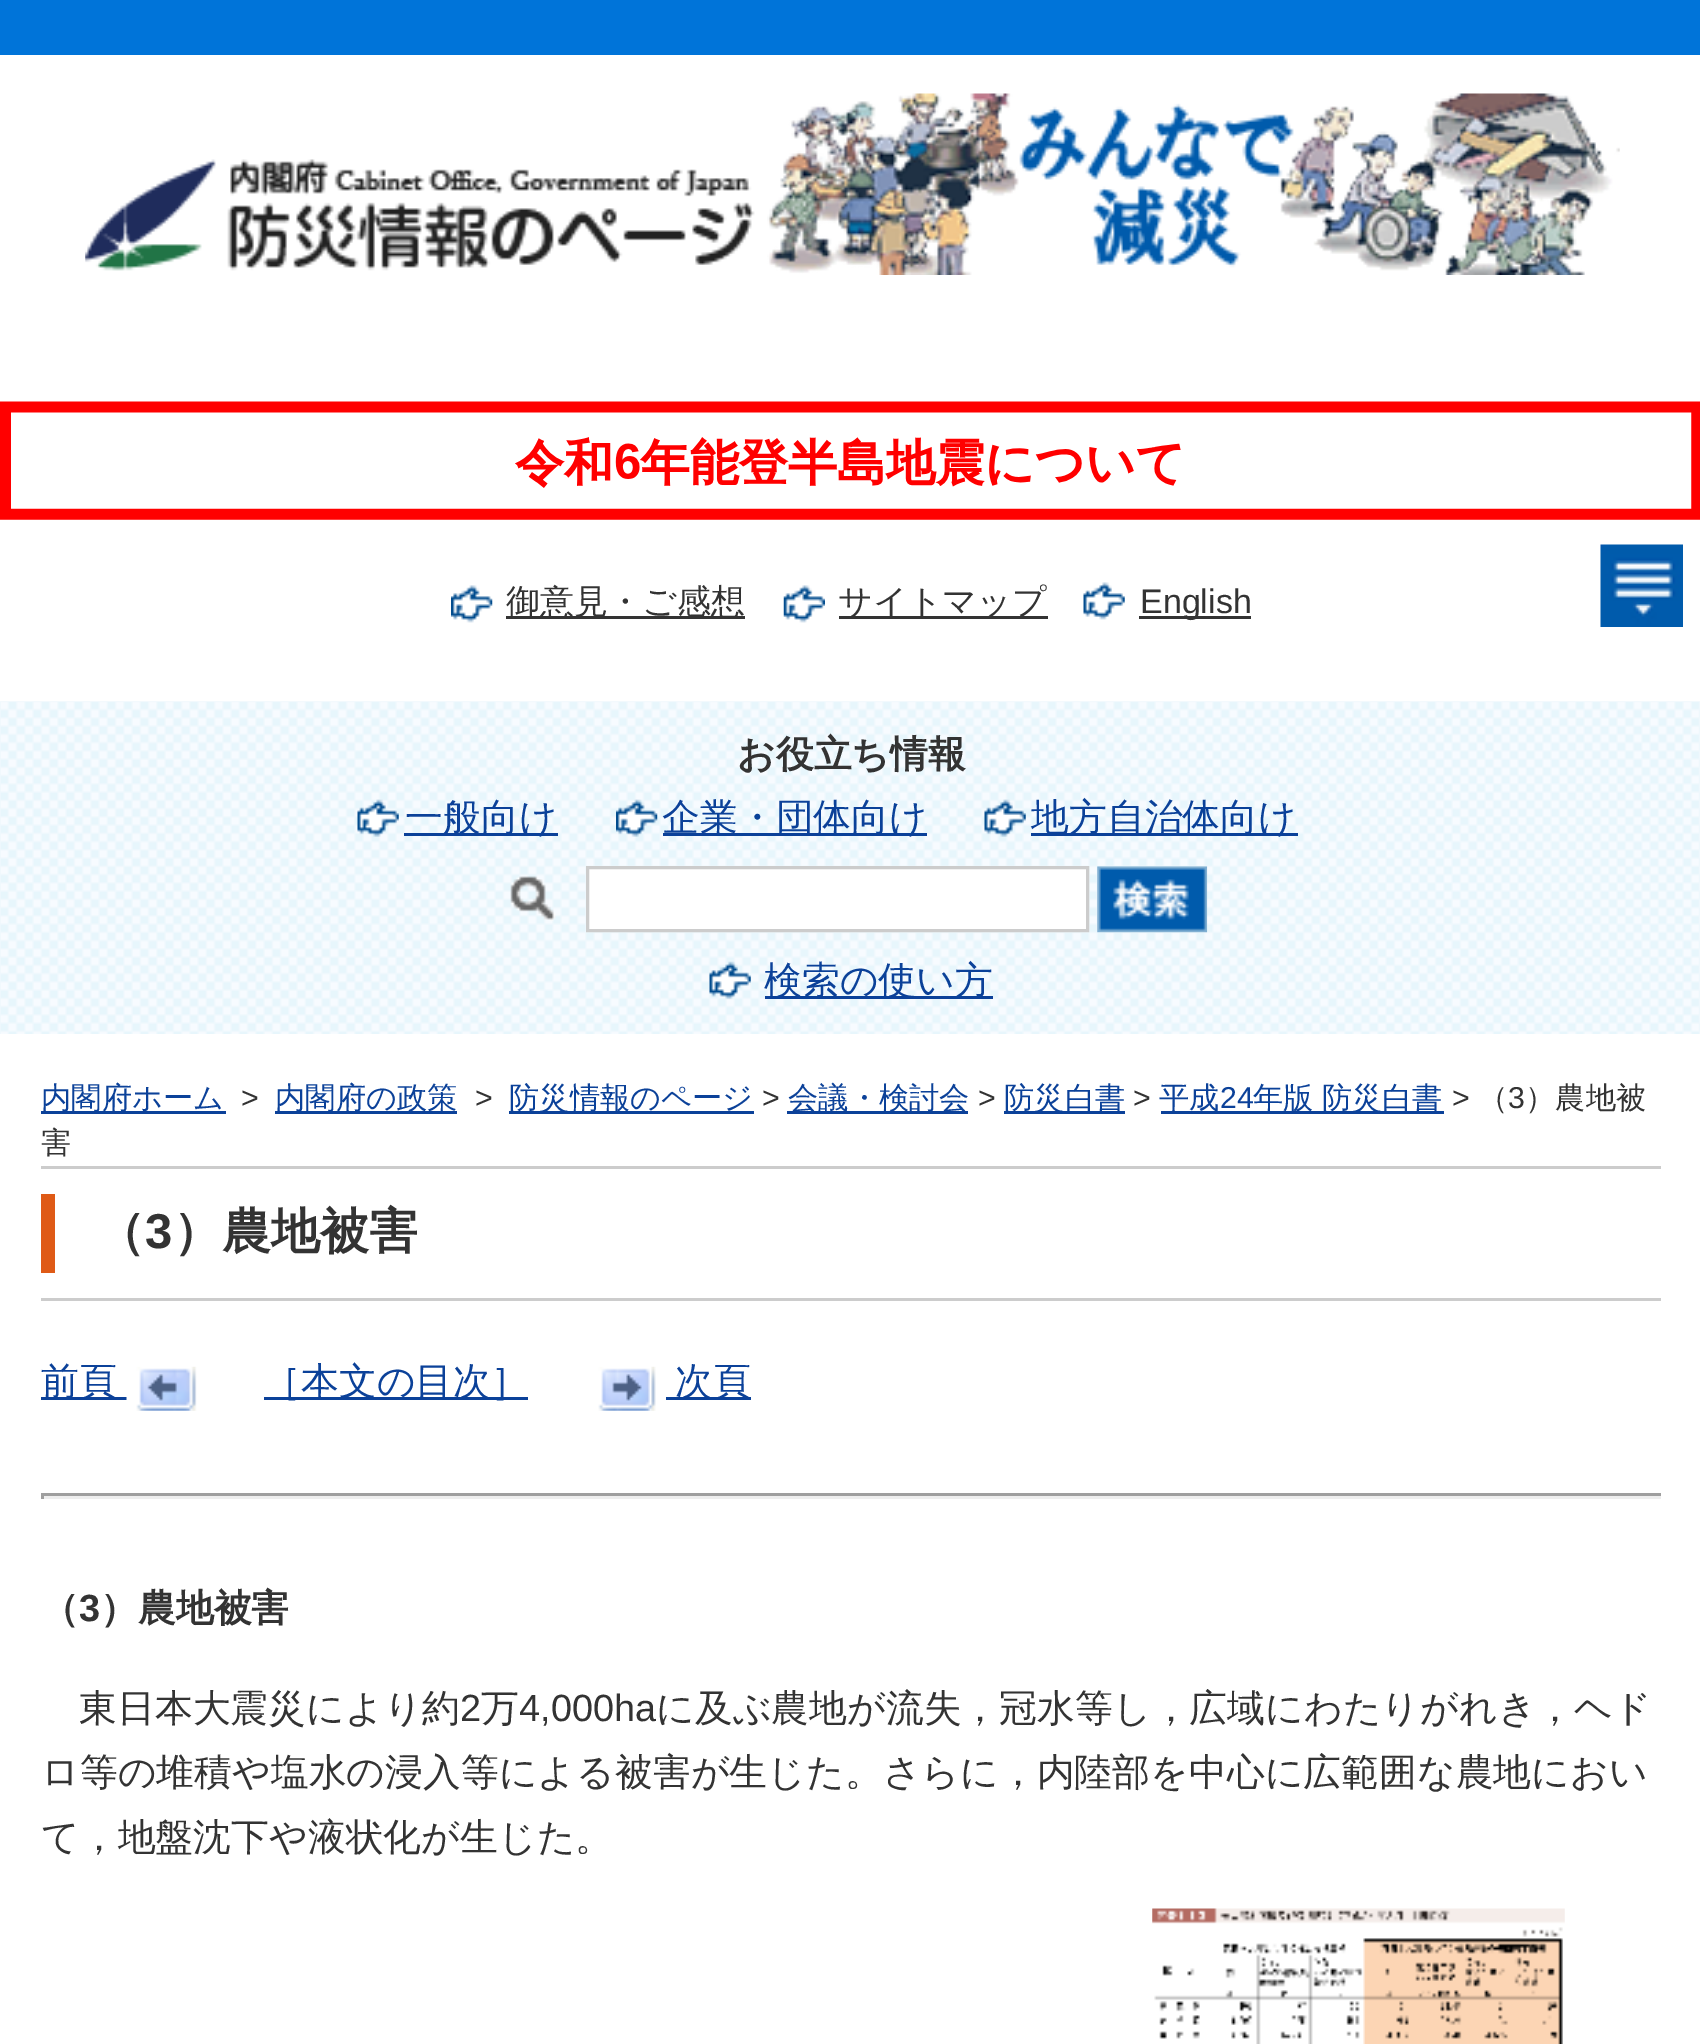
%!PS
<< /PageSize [1700 2044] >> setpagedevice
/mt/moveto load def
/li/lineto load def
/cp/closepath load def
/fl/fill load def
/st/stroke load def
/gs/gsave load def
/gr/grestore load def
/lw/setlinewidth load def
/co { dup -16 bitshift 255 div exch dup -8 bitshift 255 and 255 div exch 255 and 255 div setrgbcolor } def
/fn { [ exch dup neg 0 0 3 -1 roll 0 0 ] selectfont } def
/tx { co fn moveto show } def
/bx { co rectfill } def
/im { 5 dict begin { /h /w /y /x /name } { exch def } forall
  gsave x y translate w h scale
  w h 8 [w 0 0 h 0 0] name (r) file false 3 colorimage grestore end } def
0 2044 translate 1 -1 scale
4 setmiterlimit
0 0 1700 2044 16#FFFFFF bx
0 0 1700 55 16#0074D9 bx
(media/1.raw) 85 159 670 112 im
(media/2.raw) 767 93 853 182 im
(media/3.raw) 0 401 1700 226 im
(media/4.raw) 451 585 42 38 im
506 616 239 3 16#333333 bx
(media/5.raw) 783 585 42 38 im
839 616 209 3 16#333333 bx
(media/6.raw) 1083 582 42 38 im
1139 616 112 3 16#333333 bx
(media/7.raw) 0 701 1700 333 im
(media/8.raw) 357 799 42 38 im
404 833 154 3 16#0B4199 bx
(media/9.raw) 616 799 42 38 im
663 833 264 3 16#0B4199 bx
(media/8.raw) 984 799 42 38 im
1031 833 267 3 16#0B4199 bx
(media/10.raw) 510 876 46 45 im
16#FFFFFF co
587.5 867.5 mt 1087.5 867.5 li 1087.5 930.5 li 587.5 930.5 li cp gs fl gr
16#CCCCCC co
3 lw
st
(media/11.raw) 1097 866 111 67 im
(media/12.raw) 709 961 42 39 im
765 996 228 3 16#0B4199 bx
41 1111 185 3 16#0B4199 bx
275 1111 182 3 16#0B4199 bx
509 1111 245 3 16#0B4199 bx
787 1111 181 3 16#0B4199 bx
1004 1111 121 3 16#0B4199 bx
1161 1111 283 3 16#0B4199 bx
41 1194 14 79 16#DF5A16 bx
41 1166 1620 3 16#CCCCCC bx
41 1298 1620 3 16#CCCCCC bx
41 1397 86 3 16#0B4199 bx
(media/13.raw) 126 1366 71 45 im
264 1397 264 3 16#0B4199 bx
(media/14.raw) 598 1366 58 45 im
666 1397 85 3 16#0B4199 bx
41 1493 1620 3 16#9F9F9F bx
41 1496 1620 3 16#EEEEEE bx
41 1493 3 6 16#9F9F9F bx
(media/15.raw) 1152 1908 413 136 im
(御意見・ご感想) 506 613 /WenQuanYiZenHei-Medium 34 16#333333 tx
(サイトマップ) 838 613 /WenQuanYiZenHei-Medium 34 16#333333 tx
(English) 1140 613 /LiberationSans-Regular 34 16#333333 tx
(お役立ち情報) 737 767 /WenQuanYiZenHei-Bold 37.85 16#333333 tx
(一般向け) 405 830 /WenQuanYiZenHei-Medium 37.85 16#0B4199 tx
(企業・団体向け) 662 830 /WenQuanYiZenHei-Medium 37.85 16#0B4199 tx
(地方自治体向け) 1031 830 /WenQuanYiZenHei-Medium 37.85 16#0B4199 tx
(検索の使い方) 764 993 /WenQuanYiZenHei-Medium 37.85 16#0B4199 tx
(内閣府ホーム) 41 1108 /WenQuanYiZenHei-Medium 30.25 16#0B4199 tx
(>) 241 1108 /LiberationSans-Regular 30.25 16#333333 tx
(内閣府の政策) 275 1108 /WenQuanYiZenHei-Medium 30.25 16#0B4199 tx
(>) 475 1108 /LiberationSans-Regular 30.25 16#333333 tx
(防災情報のページ) 509 1108 /WenQuanYiZenHei-Medium 30.25 16#0B4199 tx
(>) 762 1108 /LiberationSans-Regular 30.25 16#333333 tx
(会議・検討会) 788 1108 /WenQuanYiZenHei-Medium 30.25 16#0B4199 tx
(>) 978 1108 /LiberationSans-Regular 30.25 16#333333 tx
(防災白書) 1004 1108 /WenQuanYiZenHei-Medium 30.25 16#0B4199 tx
(>) 1133 1108 /LiberationSans-Regular 30.25 16#333333 tx
(平成) 1159 1108 /WenQuanYiZenHei-Medium 30.25 16#0B4199 tx
(24) 1220 1108 /LiberationSans-Regular 30.25 16#0B4199 tx
/WenQuanYiZenHei-Medium 30.25 fn
1253 1108 mt -1 0 32 (年版 防災白書) widthshow
(>) 1452 1108 /LiberationSans-Regular 30.25 16#333333 tx
(（) 1478 1108 /WenQuanYiZenHei-Medium 30.25 16#333333 tx
(3) 1508 1108 /LiberationSans-Regular 30.25 16#333333 tx
(）農地被) 1525 1108 /WenQuanYiZenHei-Medium 30.25 16#333333 tx
(害) 41 1153 /WenQuanYiZenHei-Medium 30.25 16#333333 tx
(（) 96 1248 /WenQuanYiZenHei-Bold 49 16#333333 tx
(3) 145 1248 /LiberationSans-Bold 49 16#333333 tx
(）農地被害) 173 1248 /WenQuanYiZenHei-Bold 49 16#333333 tx
(前頁) 41 1394 /WenQuanYiZenHei-Medium 37.85 16#0B4199 tx
(［本文の目次］) 263 1394 /WenQuanYiZenHei-Medium 37.85 16#0B4199 tx
(次頁) 675 1394 /WenQuanYiZenHei-Medium 37.85 16#0B4199 tx
(（) 41 1621 /WenQuanYiZenHei-Bold 37.85 16#333333 tx
(3) 79 1621 /LiberationSans-Bold 37.85 16#333333 tx
(）農地被害) 100 1621 /WenQuanYiZenHei-Bold 37.85 16#333333 tx
(東日本大震災により約) 79 1721 /WenQuanYiZenHei-Medium 37.85 16#333333 tx
(2) 460 1721 /LiberationSans-Regular 37.85 16#333333 tx
(万) 481 1721 /WenQuanYiZenHei-Medium 37.85 16#333333 tx
(4,000ha) 519 1721 /LiberationSans-Regular 37.85 16#333333 tx
(に及ぶ農地が流失，冠水等し，広域にわたりがれき，ヘド) 656 1721 /WenQuanYiZenHei-Medium 37.85 16#333333 tx
(ロ等の堆積や塩水の浸入等による被害が生じた。さらに，内陸部を中心に広範囲な農地におい) 41 1785 /WenQuanYiZenHei-Medium 37.85 16#333333 tx
(て，地盤沈下や液状化が生じた。) 41 1850 /WenQuanYiZenHei-Medium 37.85 16#333333 tx
showpage
